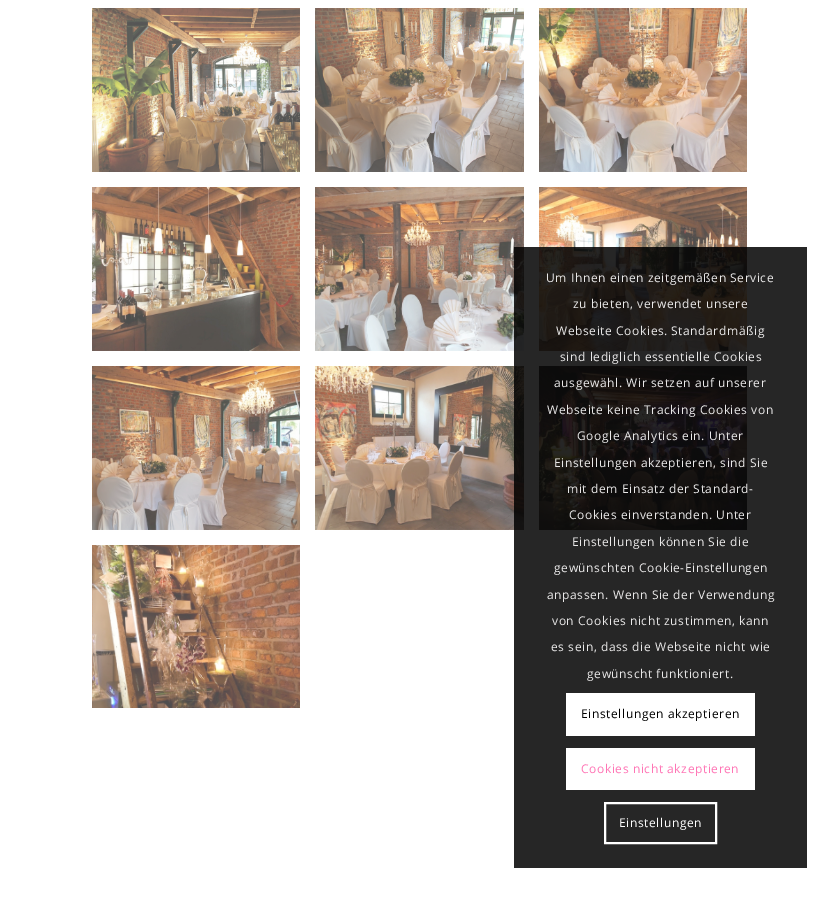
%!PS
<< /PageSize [837 898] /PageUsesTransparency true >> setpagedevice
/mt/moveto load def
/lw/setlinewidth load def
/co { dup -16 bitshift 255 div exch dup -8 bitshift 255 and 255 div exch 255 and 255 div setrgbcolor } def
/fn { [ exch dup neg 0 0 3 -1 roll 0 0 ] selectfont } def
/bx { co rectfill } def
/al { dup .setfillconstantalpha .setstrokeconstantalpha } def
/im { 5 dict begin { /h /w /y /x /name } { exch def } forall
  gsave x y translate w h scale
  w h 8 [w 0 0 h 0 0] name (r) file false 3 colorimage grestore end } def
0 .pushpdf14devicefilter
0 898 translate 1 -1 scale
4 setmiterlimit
0 0 837 898 16#FFFFFF bx
(media/1.raw) 92 8 208 164 im
(media/2.raw) 315 8 209 164 im
(media/3.raw) 539 8 208 164 im
(media/4.raw) 92 187 208 164 im
(media/5.raw) 315 187 209 164 im
(media/6.raw) 539 187 208 164 im
(media/7.raw) 92 366 208 164 im
(media/8.raw) 315 366 209 164 im
(media/9.raw) 539 366 208 164 im
(media/10.raw) 92 545 208 163 im
0.85 al
514 247 293 621 16#000000 bx
1 al
566 693 189 43 16#FFFFFF bx
566 748 189 42 16#FFFFFF bx
2 lw
605 803 111 40 rectstroke
/OpenSans-Regular 12 fn
16#E9E8E8 co
546 282 mt .6 0 (Um Ihnen einen zeitgemäßen Service) ashow
573 308 mt .6 0 (zu bieten, verwendet unsere) ashow
556 335 mt .6 0 (Webseite Cookies.) ashow
671 335 mt .6 0 (Standardmäßig) ashow
560 361 mt .6 0 (sind lediglich essentielle Cookies) ashow
554 387 mt .6 0 (ausgewähl. Wir setzen auf unserer) ashow
547 414 mt .6 0 (Webseite keine Tracking Cookies von) ashow
577 440 mt .6 0 (Google Analytics ein. Unter) ashow
554 467 mt .6 0 (Einstellungen akzeptieren, sind Sie) ashow
567 493 mt .6 0 (mit dem Einsatz der Standard-) ashow
569 519 mt .6 0 (Cookies einverstanden. Unter) ashow
572 546 mt .6 0 (Einstellungen können Sie die) ashow
554 572 mt .6 0 (gewünschten Cookie-Einstellungen) ashow
547 599 mt .6 0 (anpassen. Wenn Sie der Verwendung) ashow
552 625 mt .6 0 (von Cookies nicht zustimmen, kann) ashow
551 651 mt .6 0 (es sein, dass die Webseite nicht wie) ashow
587 678 mt .6 0 (gewünscht funktioniert.) ashow
16#000000 co
581 718 mt .6 0 (Einstellungen akzeptieren) ashow
16#FF75B5 co
581 773 mt .6 0 (Cookies nicht akzeptieren) ashow
16#FFFFFF co
619 827 mt .6 0 (Einstellungen) ashow
.poppdf14devicefilter showpage
